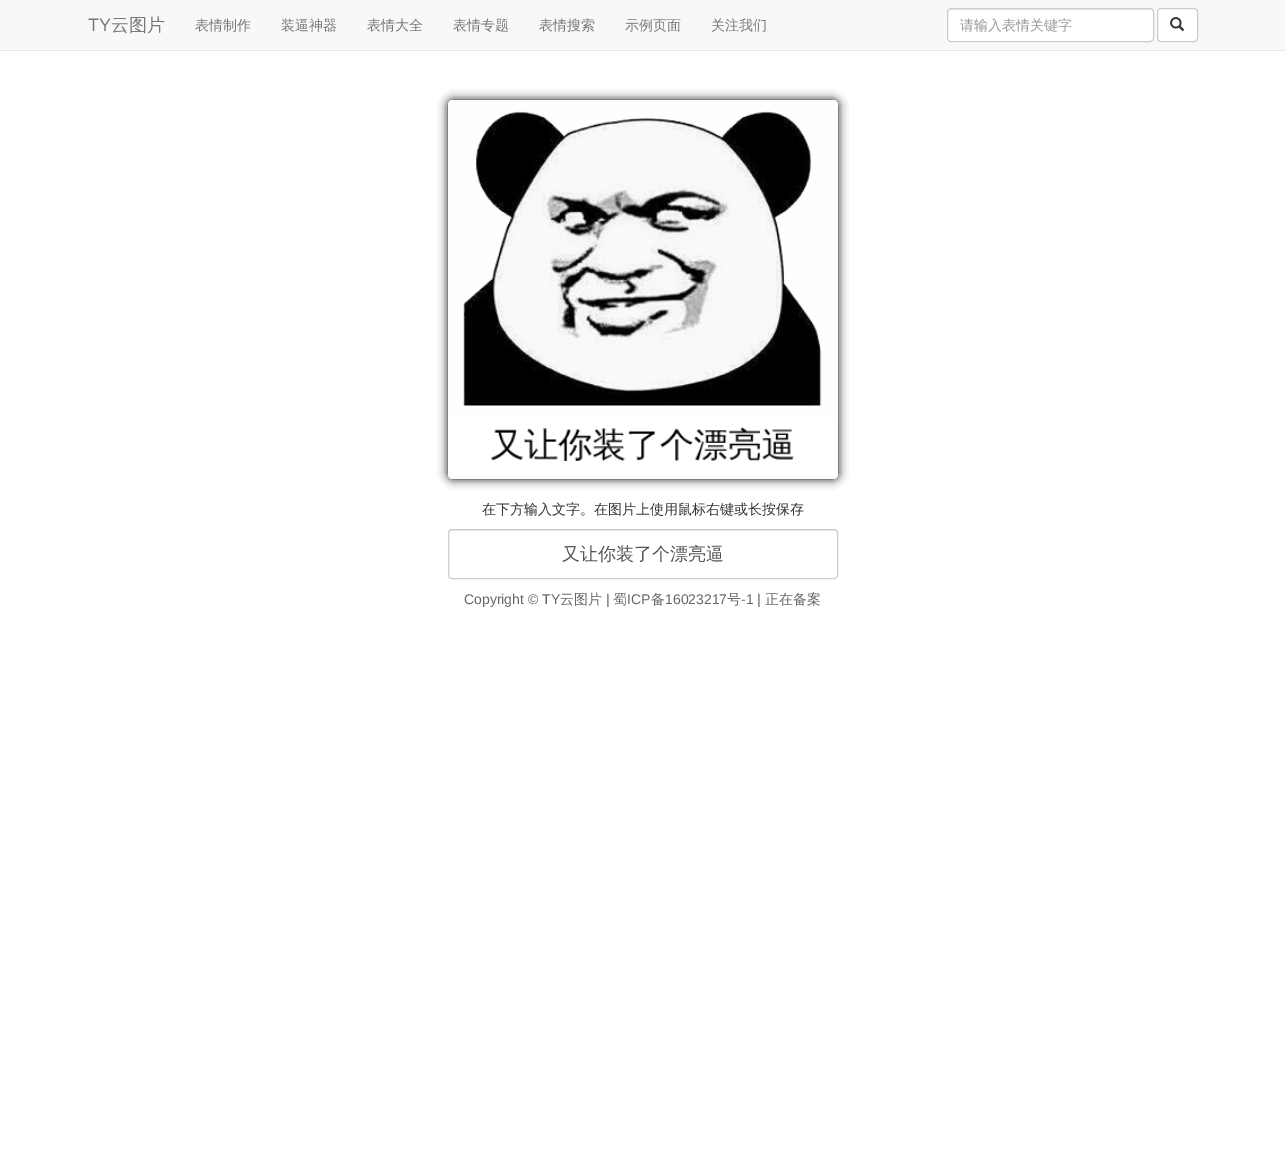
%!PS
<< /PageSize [1285 1155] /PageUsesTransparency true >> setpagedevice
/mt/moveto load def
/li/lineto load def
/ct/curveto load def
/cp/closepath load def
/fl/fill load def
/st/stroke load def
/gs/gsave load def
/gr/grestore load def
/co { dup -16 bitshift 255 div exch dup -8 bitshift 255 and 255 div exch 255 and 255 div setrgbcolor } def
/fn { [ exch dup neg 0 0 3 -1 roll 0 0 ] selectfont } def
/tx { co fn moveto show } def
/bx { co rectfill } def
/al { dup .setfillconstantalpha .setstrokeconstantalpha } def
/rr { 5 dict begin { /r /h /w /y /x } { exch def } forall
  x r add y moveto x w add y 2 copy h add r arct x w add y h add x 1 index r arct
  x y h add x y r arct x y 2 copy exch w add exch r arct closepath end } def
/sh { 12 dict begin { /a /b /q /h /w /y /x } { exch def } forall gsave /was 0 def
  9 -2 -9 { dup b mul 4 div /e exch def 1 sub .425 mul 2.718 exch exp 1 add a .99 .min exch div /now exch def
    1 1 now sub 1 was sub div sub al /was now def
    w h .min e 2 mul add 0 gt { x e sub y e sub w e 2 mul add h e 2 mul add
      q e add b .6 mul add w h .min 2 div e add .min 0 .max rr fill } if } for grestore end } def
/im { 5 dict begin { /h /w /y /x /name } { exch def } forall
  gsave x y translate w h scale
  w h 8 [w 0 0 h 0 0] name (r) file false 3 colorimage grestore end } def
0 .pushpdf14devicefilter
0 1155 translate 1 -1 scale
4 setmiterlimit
0 0 1285 1155 16#FFFFFF bx
0 0 1285 50 16#F8F8F8 bx
0 50 1285 1 16#E7E7E7 bx
16#FFFFFF co
947 8 207 34 4 rr fl
16#ECECEC co
951 10 mt 1150 10 li 1152 10 1153 11 1153 13 ct 1153 11 1152 9 1150 9 ct 951 9 li 949 9 948 11 948 13 ct 948 11 949 10 951 10 ct cp fl
16#CCCCCC co
947.5 8.5 206 33 3.5 rr st
16#FFFFFF co
1157.5 8.5 40 33 3.5 rr gs fl gr
16#CCCCCC co
st
(media/1.raw) 1170 17 15 14 im
16#000000 co
448 100 390 379 5 5 1 sh
(media/2.raw) 448 100 390 379 im
16#ECECEC co
452 531 mt 834 531 li 836 531 837 532 837 534 ct 837 532 836 530 834 530 ct 452 530 li 450 531 li 449 534 li 449 532 450 531 452 531 ct cp fl
16#CCCCCC co
448.5 529.5 389 49 3.5 rr st
(TY) 88 31 /LiberationSans-Regular 18 16#777777 tx
(云图片) 111 31 /WenQuanYiZenHei-Medium 18 16#777777 tx
(表情制作) 195 30 /WenQuanYiZenHei-Medium 14 16#777777 tx
(装逼神器) 281 30 /WenQuanYiZenHei-Medium 14 16#777777 tx
(表情大全) 367 30 /WenQuanYiZenHei-Medium 14 16#777777 tx
(表情专题) 453 30 /WenQuanYiZenHei-Medium 14 16#777777 tx
(表情搜索) 539 30 /WenQuanYiZenHei-Medium 14 16#777777 tx
(示例页面) 625 30 /WenQuanYiZenHei-Medium 14 16#777777 tx
(关注我们) 711 30 /WenQuanYiZenHei-Medium 14 16#777777 tx
(请输入表情关键字) 960 30 /WenQuanYiZenHei-Medium 14 16#999999 tx
(在下方输入文字。在图片上使用鼠标右键或长按保存) 482 514 /WenQuanYiZenHei-Medium 14 16#333333 tx
(又让你装了个漂亮逼) 562 560 /WenQuanYiZenHei-Medium 18 16#555555 tx
(Copyright © TY) 464 604 /LiberationSans-Regular 14 16#666666 tx
(云图片) 560 604 /WenQuanYiZenHei-Medium 14 16#666666 tx
(|) 606 604 /LiberationSans-Regular 14 16#666666 tx
(蜀) 613 604 /WenQuanYiZenHei-Medium 14 16#666666 tx
(ICP) 627 604 /LiberationSans-Regular 14 16#666666 tx
(备) 651 604 /WenQuanYiZenHei-Medium 14 16#666666 tx
(16023217) 665 604 /LiberationSans-Regular 14 16#666666 tx
(号) 727 604 /WenQuanYiZenHei-Medium 14 16#666666 tx
(-1 |) 741 604 /LiberationSans-Regular 14 16#666666 tx
(正在备案) 765 604 /WenQuanYiZenHei-Medium 14 16#666666 tx
.poppdf14devicefilter showpage
